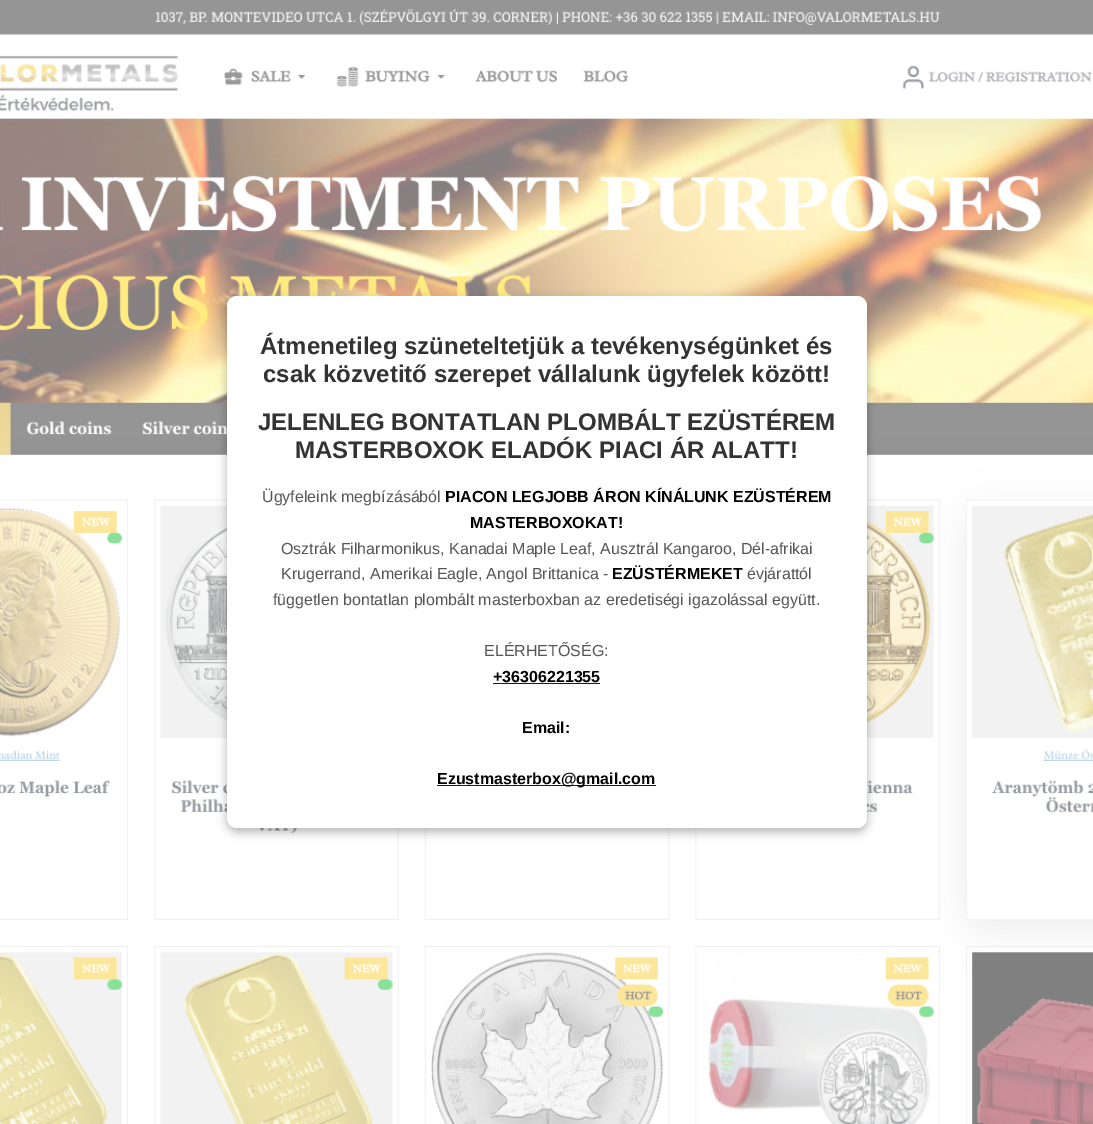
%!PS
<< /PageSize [1093 1124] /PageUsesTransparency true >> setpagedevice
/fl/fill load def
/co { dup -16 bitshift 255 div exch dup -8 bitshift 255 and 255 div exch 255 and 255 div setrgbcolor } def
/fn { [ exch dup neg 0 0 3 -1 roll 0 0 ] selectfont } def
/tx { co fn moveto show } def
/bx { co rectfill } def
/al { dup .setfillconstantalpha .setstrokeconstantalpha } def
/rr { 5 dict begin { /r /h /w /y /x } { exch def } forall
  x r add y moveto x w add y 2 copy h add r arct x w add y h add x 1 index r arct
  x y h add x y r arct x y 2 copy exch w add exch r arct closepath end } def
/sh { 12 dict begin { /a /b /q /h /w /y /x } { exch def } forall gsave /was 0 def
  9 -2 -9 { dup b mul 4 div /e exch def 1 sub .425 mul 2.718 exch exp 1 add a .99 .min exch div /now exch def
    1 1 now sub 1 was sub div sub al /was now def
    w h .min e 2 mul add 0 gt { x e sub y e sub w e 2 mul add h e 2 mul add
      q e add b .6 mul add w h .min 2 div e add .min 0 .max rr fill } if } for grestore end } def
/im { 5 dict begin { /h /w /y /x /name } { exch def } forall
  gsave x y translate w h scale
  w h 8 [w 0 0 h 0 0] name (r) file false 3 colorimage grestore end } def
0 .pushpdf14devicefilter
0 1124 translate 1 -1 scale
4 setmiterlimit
0 0 1093 1124 16#FFFFFF bx
(media/1.raw) 0 0 1093 1124 im
16#000000 co
227 300 640 532 10 5 .3 sh
16#FFFFFF co
227 296 640 532 10 rr fl
493 683 107 1 16#0000EE bx
437 785 219 1 16#0000EE bx
(Átmenetileg szüneteltetjük a tevékenységünket és) 260 354 /LiberationSans-Bold 24 16#333333 tx
(csak közvetitő szerepet vállalunk ügyfelek között!) 263 382 /LiberationSans-Bold 24 16#333333 tx
(JELENLEG BONTATLAN PLOMBÁLT EZÜSTÉREM) 258 430 /LiberationSans-Bold 24 16#333333 tx
(MASTERBOXOK ELADÓK PIACI ÁR ALATT!) 295 458 /LiberationSans-Bold 24 16#333333 tx
(Ügyfeleink megbízásából) 262 502 /LiberationSans-Regular 16 16#555555 tx
(PIACON LEGJOBB ÁRON KÍNÁLUNK EZÜSTÉREM) 445 502 /LiberationSans-Bold 16 16#000000 tx
(MASTERBOXOKAT!) 470 528 /LiberationSans-Bold 16 16#000000 tx
(Osztrák Filharmonikus, Kanadai Maple Leaf, Ausztrál Kangaroo, Dél-afrikai) 281 554 /LiberationSans-Regular 16 16#555555 tx
(Krugerrand, Amerikai Eagle, Angol Brittanica -) 281 579 /LiberationSans-Regular 16 16#555555 tx
(EZÜSTÉRMEKET) 612 579 /LiberationSans-Bold 16 16#000000 tx
(évjárattól) 747 579 /LiberationSans-Regular 16 16#555555 tx
(független bontatlan plombált masterboxban az eredetiségi igazolással együtt.) 273 605 /LiberationSans-Regular 16 16#555555 tx
(ELÉRHETŐSÉG:) 484 656 /LiberationSans-Regular 16 16#555555 tx
(+36306221355) 493 682 /LiberationSans-Bold 16 16#000000 tx
(Email:) 522 733 /LiberationSans-Bold 16 16#000000 tx
(Ezustmasterbox@gmail.com) 437 784 /LiberationSans-Bold 16 16#000000 tx
.poppdf14devicefilter showpage
